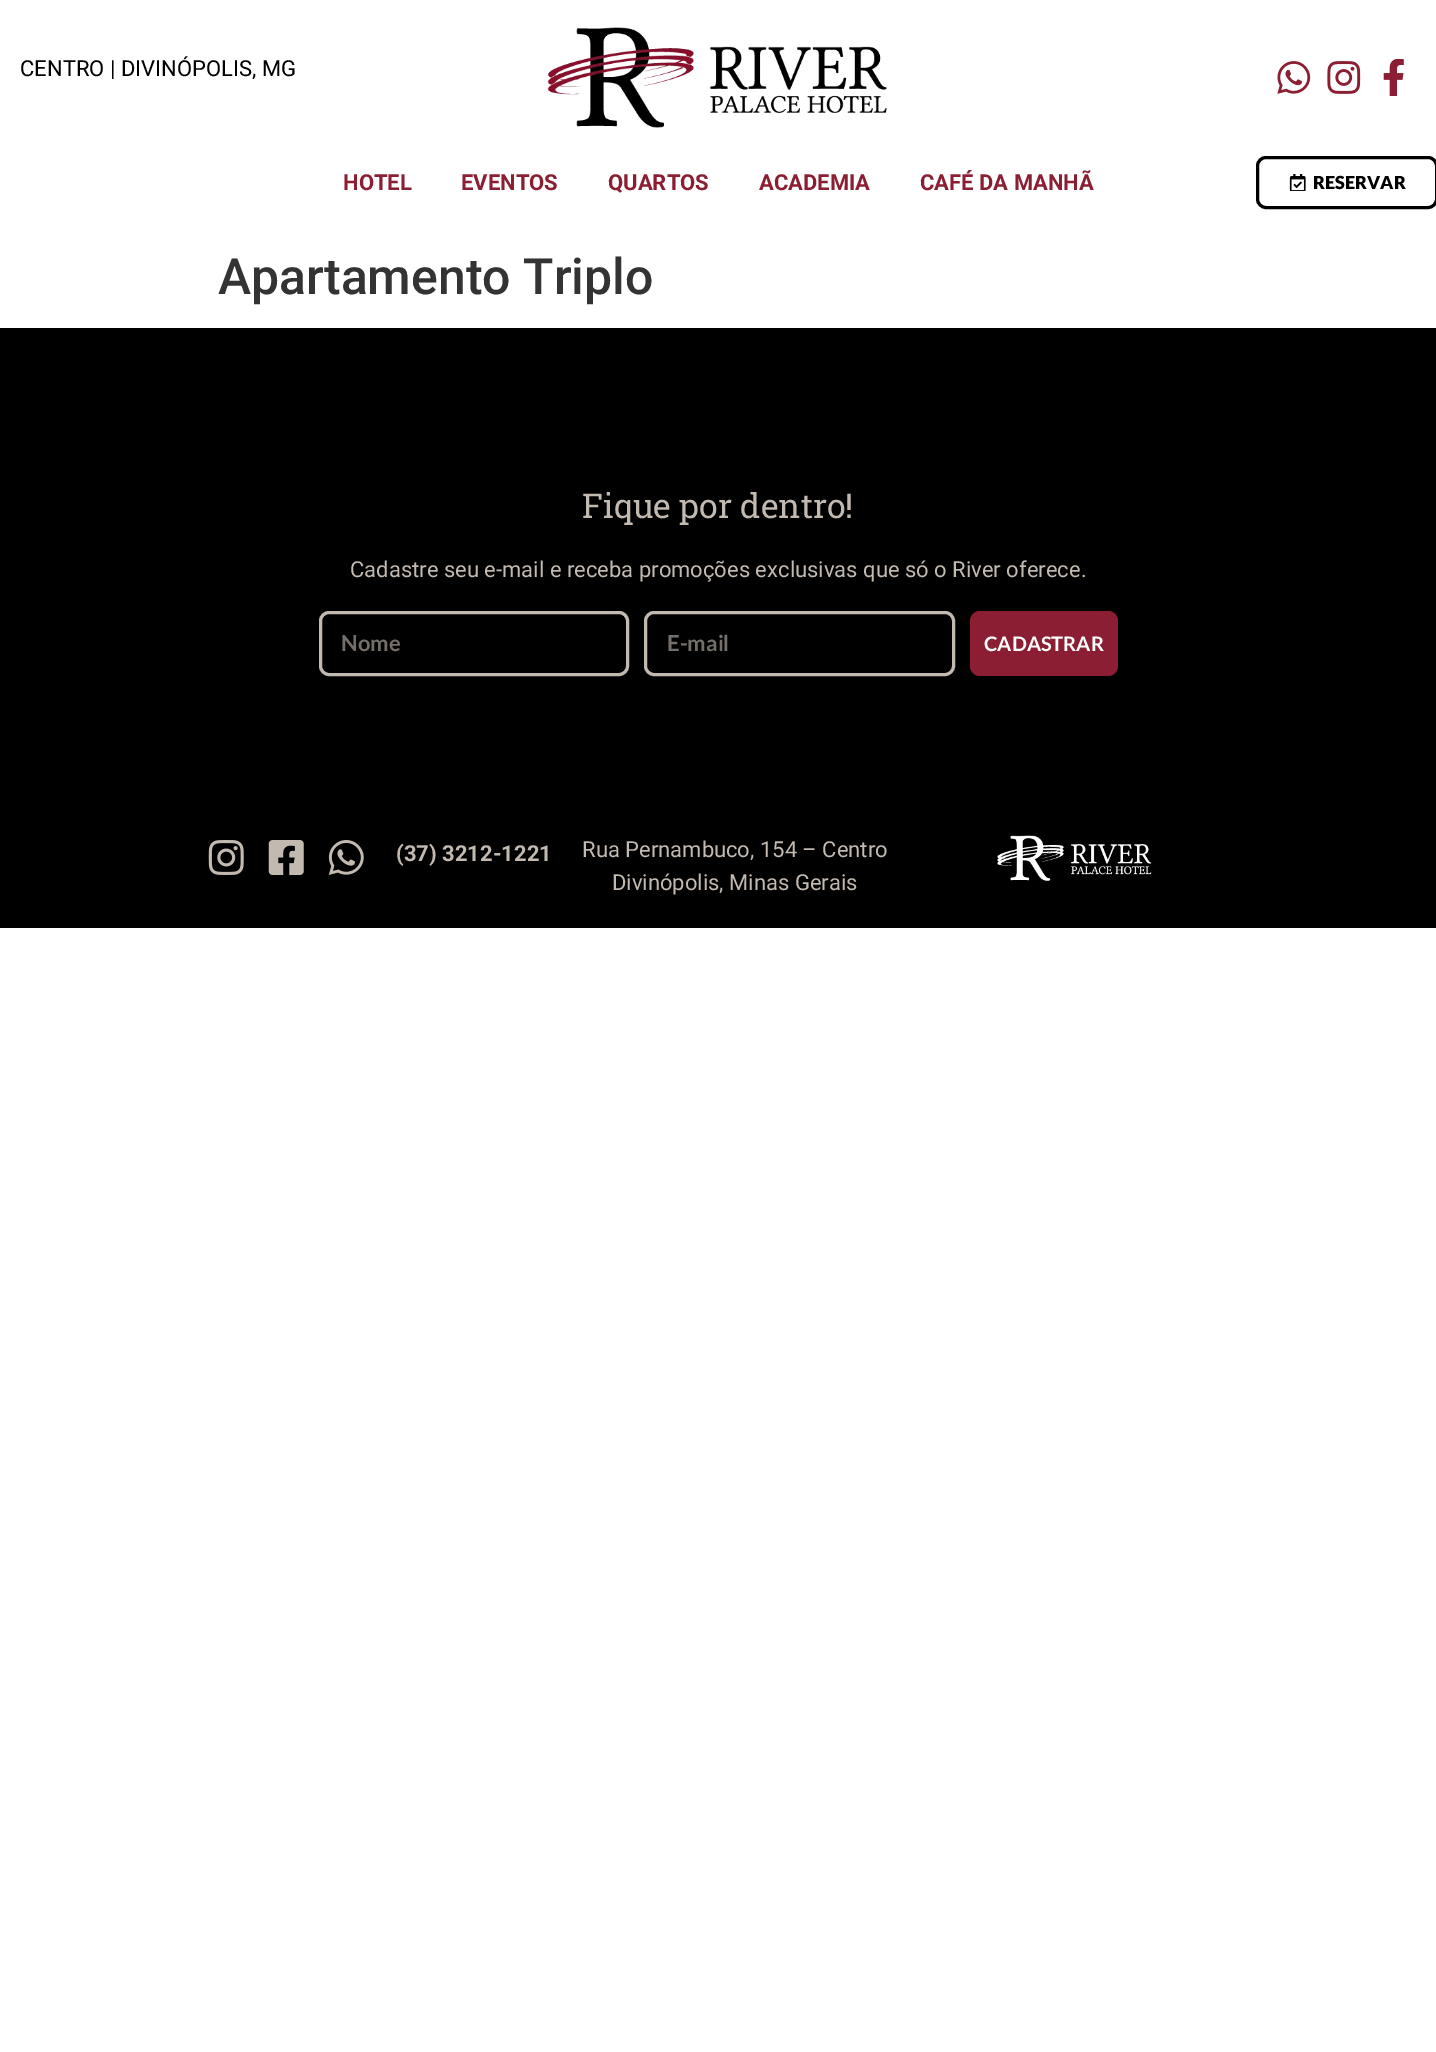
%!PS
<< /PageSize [1436 2052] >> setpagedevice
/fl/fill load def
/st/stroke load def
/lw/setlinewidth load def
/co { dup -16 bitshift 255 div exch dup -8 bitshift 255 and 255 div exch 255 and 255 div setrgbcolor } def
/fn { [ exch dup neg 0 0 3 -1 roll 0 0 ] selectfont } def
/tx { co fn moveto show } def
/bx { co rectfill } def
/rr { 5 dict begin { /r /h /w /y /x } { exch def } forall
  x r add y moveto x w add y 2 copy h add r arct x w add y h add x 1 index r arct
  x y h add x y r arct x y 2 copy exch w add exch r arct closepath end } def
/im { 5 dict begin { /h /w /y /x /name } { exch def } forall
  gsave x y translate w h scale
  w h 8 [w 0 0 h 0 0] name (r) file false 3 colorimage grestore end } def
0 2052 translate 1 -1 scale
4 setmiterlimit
0 0 1436 2052 16#FFFFFF bx
(media/1.raw) 547 27 340 101 im
(media/2.raw) 1277 61 34 33 im
(media/3.raw) 1327 61 34 33 im
(media/4.raw) 1383 59 21 37 im
16#000000 co
3 lw
1257.5 157.5 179 50 8.5 rr st
(media/5.raw) 1289 174 17 17 im
0 328 1436 600 16#000000 bx
16#C2B9B1 co
320.5 612.5 307 62 8.5 rr st
645.5 612.5 308 62 8.5 rr st
16#8B1E32 co
970 611 148 65 10 rr fl
(media/6.raw) 208 840 36 35 im
(media/7.raw) 268 840 36 35 im
(media/8.raw) 328 840 36 35 im
(media/9.raw) 997 835 155 46 im
(CENTRO | DIVINÓPOLIS, MG) 20 76 /Roboto-Regular 22 16#000000 tx
(HOTEL) 343 190 /Roboto-Bold 22 16#8B1E32 tx
(EVENTOS) 461 190 /Roboto-Bold 22 16#8B1E32 tx
(QUARTOS) 608 190 /Roboto-Bold 22 16#8B1E32 tx
(ACADEMIA) 759 190 /Roboto-Bold 22 16#8B1E32 tx
(CAFÉ DA MANHÃ) 920 190 /Roboto-Bold 22 16#8B1E32 tx
(RESERVAR) 1313 189 /Lato-Black 18 16#000000 tx
(Apartamento Triplo) 218 294 /Roboto-Medium 50 16#333333 tx
(Fique por dentro!) 582 518 /RobotoSlab-Regular 34 16#C2B9B1 tx
(Cadastre seu e-mail e receba promoções exclusivas que só o River oferece.) 350 577 /Roboto-Regular 22 16#C2B9B1 tx
(Nome) 341 651 /Lato-Bold 22 16#746F6A tx
(E-mail) 667 651 /Lato-Bold 22 16#746F6A tx
(CADASTRAR) 984 651 /Lato-Bold 20 16#FFFFFF tx
(\(37\) 3212-1221) 396 861 /Roboto-Bold 22 16#C2B9B1 tx
(Rua Pernambuco, 154 – Centro) 582 857 /Roboto-Regular 22 16#C2B9B1 tx
(Divinópolis, Minas Gerais) 612 890 /Roboto-Regular 22 16#C2B9B1 tx
showpage
